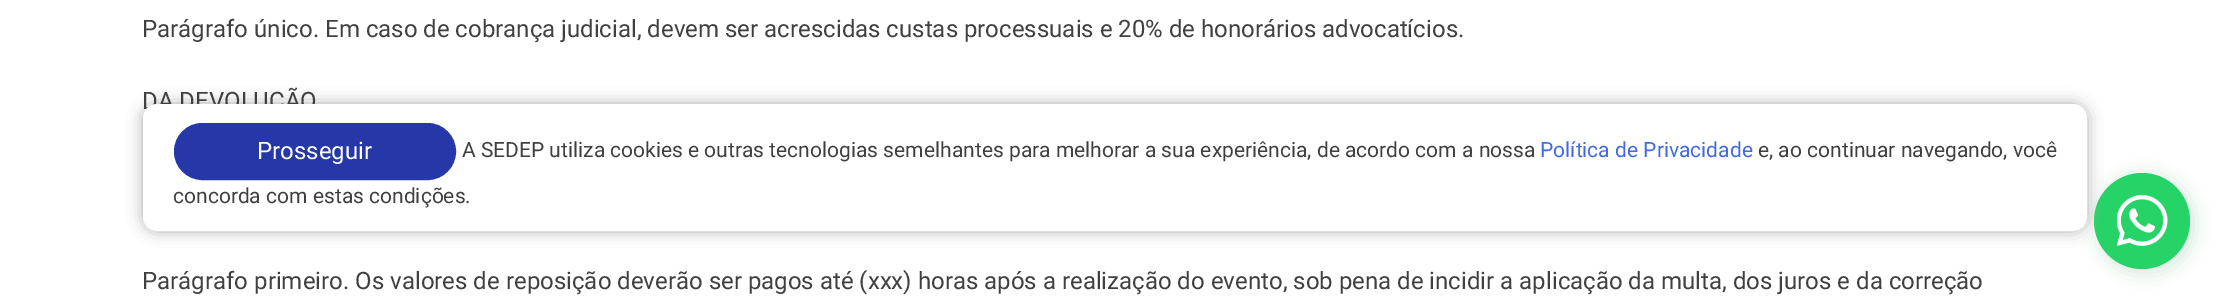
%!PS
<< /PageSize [2227 305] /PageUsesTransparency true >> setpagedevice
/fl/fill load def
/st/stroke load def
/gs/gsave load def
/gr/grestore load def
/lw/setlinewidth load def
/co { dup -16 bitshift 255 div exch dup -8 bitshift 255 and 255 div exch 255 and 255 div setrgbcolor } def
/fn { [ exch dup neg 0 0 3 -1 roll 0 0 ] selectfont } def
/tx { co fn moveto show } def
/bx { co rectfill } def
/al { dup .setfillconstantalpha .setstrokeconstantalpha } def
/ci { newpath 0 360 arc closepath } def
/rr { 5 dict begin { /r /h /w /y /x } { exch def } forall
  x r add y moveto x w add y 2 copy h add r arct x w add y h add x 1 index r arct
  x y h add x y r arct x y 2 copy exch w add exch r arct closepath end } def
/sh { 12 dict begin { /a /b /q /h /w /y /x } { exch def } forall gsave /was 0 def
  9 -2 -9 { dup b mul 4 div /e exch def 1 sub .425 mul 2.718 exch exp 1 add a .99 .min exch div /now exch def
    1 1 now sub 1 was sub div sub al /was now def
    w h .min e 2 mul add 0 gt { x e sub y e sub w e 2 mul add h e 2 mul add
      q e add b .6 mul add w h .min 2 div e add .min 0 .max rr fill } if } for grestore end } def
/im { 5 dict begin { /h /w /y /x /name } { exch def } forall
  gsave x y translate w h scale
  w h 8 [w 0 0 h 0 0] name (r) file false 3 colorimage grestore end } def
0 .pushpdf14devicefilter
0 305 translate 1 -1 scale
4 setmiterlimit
0 0 2227 305 16#FFFFFF bx
16#167C3C co
2097 176 96 96 48 9 .2 sh
16#25D366 co
2142 221 48 ci fl
16#AAAAAA co
143 104 1944 127 14 7.5 1 sh
(media/1.raw) 2117 195 51 51 im
(Parágrafo único. Em caso de cobrança judicial, devem ser acrescidas custas processuais e 20% de honorários advocatícios.) 142 37 /Roboto-Regular 24 16#404040 tx
(DA DEVOLUÇÃO) 142 109 /Roboto-Regular 24 16#404040 tx
(Parágrafo primeiro. Os valores de reposição deverão ser pagos até \(xxx\) horas após a realização do evento, sob pena de incidir a aplicação da multa, dos juros e da correção) 142 289 /Roboto-Regular 24 16#404040 tx
16#FFFFFF co
144 105 1942 125 13 rr gs fl gr
2 lw
st
16#2638A8 co
175 124 280 55 27.5 rr gs fl gr
st
(Prosseguir) 257 159 /Roboto-Regular 24 16#FFFFFF tx
(A SEDEP utiliza cookies e outras tecnologias semelhantes para melhorar a sua experiência, de acordo com a nossa) 462 157 /Roboto-Regular 21 16#404040 tx
(Política de Privacidade) 1540 157 /Roboto-Regular 21 16#4169E1 tx
(e, ao continuar navegando, você) 1758 157 /Roboto-Regular 21 16#404040 tx
(concorda com estas condições.) 173 203 /Roboto-Regular 21 16#404040 tx
.poppdf14devicefilter showpage
